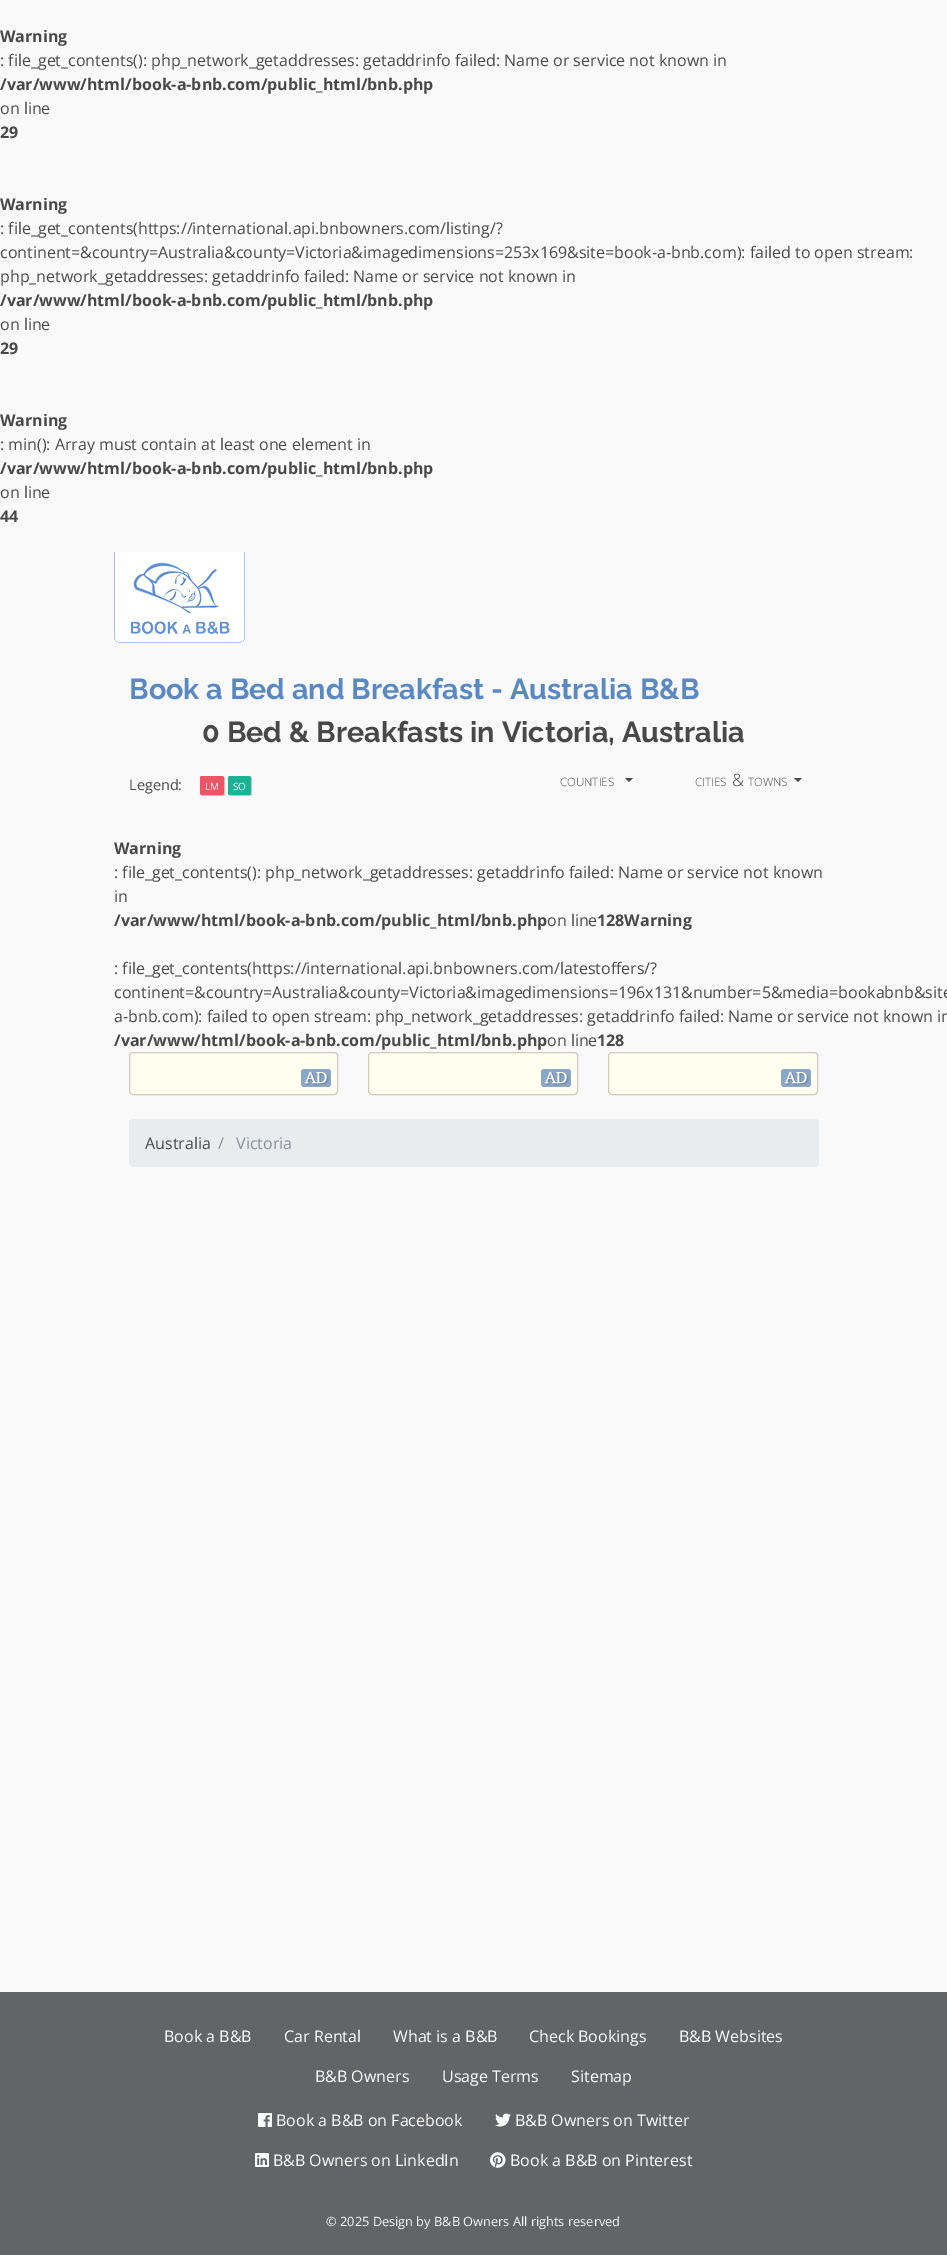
%!PS
<< /PageSize [947 2255] /PageUsesTransparency true >> setpagedevice
/mt/moveto load def
/li/lineto load def
/ct/curveto load def
/cp/closepath load def
/fl/fill load def
/st/stroke load def
/co { dup -16 bitshift 255 div exch dup -8 bitshift 255 and 255 div exch 255 and 255 div setrgbcolor } def
/fn { [ exch dup neg 0 0 3 -1 roll 0 0 ] selectfont } def
/tx { co fn moveto show } def
/bx { co rectfill } def
/al { dup .setfillconstantalpha .setstrokeconstantalpha } def
/rr { 5 dict begin { /r /h /w /y /x } { exch def } forall
  x r add y moveto x w add y 2 copy h add r arct x w add y h add x 1 index r arct
  x y h add x y r arct x y 2 copy exch w add exch r arct closepath end } def
/im { 5 dict begin { /h /w /y /x /name } { exch def } forall
  gsave x y translate w h scale
  w h 8 [w 0 0 h 0 0] name (r) file false 3 colorimage grestore end } def
0 .pushpdf14devicefilter
0 2255 translate 1 -1 scale
4 setmiterlimit
0 0 947 2255 16#F9F9F9 bx
(media/1.raw) 114 552 131 91 im
16#C7C7C7 co
201 795 mt 202.5 796 li 223.5 796 li 224.5 795.5 li 225.5 794 225 786 225 784 ct 225 782.5 226 778 224 777 ct 224 788 li 224 794.5 225 795 218.5 795 ct cp fl
16#ED5565 co
200 776 24 19 2 rr fl
16#C7C7C7 co
229 795 mt 229.5 795.5 230 796 231 796 ct 250 796 li 251 796 252 795 252 794 ct 252 779 li 252 778 251.5 777.5 251 777 ct 251 788 li 251 794.5 252 795 246 795 ct cp fl
16#1AB394 co
228 776 23 19 2 rr fl
16#484848 co
625 778 mt 633 778 li 629 782 li cp fl
794 778 mt 802 778 li 798 782 li cp fl
16#FFFFEF co
129 1052 209 43 4 rr fl
(media/2.raw) 301 1069 30 18 im
0.2 al
16#000000 co
129.5 1052.5 208 42 3.5 rr st
1 al
16#FFFFEF co
368 1052 210 43 4 rr fl
(media/2.raw) 541 1069 30 18 im
0.2 al
16#000000 co
368.5 1052.5 209 42 3.5 rr st
1 al
16#FFFFEF co
608 1052 210 43 4 rr fl
(media/2.raw) 781 1069 30 18 im
0.2 al
16#000000 co
608.5 1052.5 209 42 3.5 rr st
1 al
16#E9ECEF co
129 1119 690 48 4 rr fl
0 1992 947 263 16#626568 bx
(media/3.raw) 258 2113 14 14 im
(media/4.raw) 495 2113 16 14 im
(media/5.raw) 255 2153 14 14 im
(media/6.raw) 490 2152 16 16 im
(Warning) 0 42 /OpenSans-Bold 16 16#484848 tx
(: file_get_contents\(\): php_network_getaddresses: getaddrinfo failed: Name or service not known in) 0 66 /OpenSans-Regular 16 16#484848 tx
(/var/www/html/book-a-bnb.com/public_html/bnb.php) 0 90 /OpenSans-Bold 16 16#484848 tx
(on line) 0 114 /OpenSans-Regular 16 16#484848 tx
(29) 0 138 /OpenSans-Bold 16 16#484848 tx
(Warning) 0 210 /OpenSans-Bold 16 16#484848 tx
(: file_get_contents\(https://international.api.bnbowners.com/listing/?) 0 234 /OpenSans-Regular 16 16#484848 tx
(continent=&country=Australia&county=Victoria&imagedimensions=253x169&site=book-a-bnb.com\): failed to open stream:) 0 258 /OpenSans-Regular 16 16#484848 tx
(php_network_getaddresses: getaddrinfo failed: Name or service not known in) 0 282 /OpenSans-Regular 16 16#484848 tx
(/var/www/html/book-a-bnb.com/public_html/bnb.php) 0 306 /OpenSans-Bold 16 16#484848 tx
(on line) 0 330 /OpenSans-Regular 16 16#484848 tx
(29) 0 354 /OpenSans-Bold 16 16#484848 tx
(Warning) 0 426 /OpenSans-Bold 16 16#484848 tx
(: min\(\): Array must contain at least one element in) 0 450 /OpenSans-Regular 16 16#484848 tx
(/var/www/html/book-a-bnb.com/public_html/bnb.php) 0 474 /OpenSans-Bold 16 16#484848 tx
(on line) 0 498 /OpenSans-Regular 16 16#484848 tx
(44) 0 522 /OpenSans-Bold 16 16#484848 tx
(Book a Bed and Breakfast - Australia B&B) 129 699 /Raleway-Bold 28.75 16#5988C2 tx
(0 Bed & Breakfasts in Victoria, Australia) 202 742 /Raleway-Bold 28.75 16#484848 tx
(Legend:) 129 790 /OpenSans-Regular 14.5 16#484848 tx
(LM) 205 790 /OpenSans-Regular 10 16#F8F9FA tx
(SO) 233 790 /OpenSans-Regular 10 16#F8F9FA tx
(COUNTIES) 560 786 /OpenSans-Light 11.5 16#484848 tx
(CITIES) 695 786 /OpenSans-Light 11.5 16#484848 tx
(&) 732 786 /OpenSans-Light 17 16#484848 tx
(TOWNS) 748 786 /OpenSans-Light 11.5 16#484848 tx
(Warning) 114 854 /OpenSans-Bold 16 16#484848 tx
(: file_get_contents\(\): php_network_getaddresses: getaddrinfo failed: Name or service not known) 114 878 /OpenSans-Regular 16 16#484848 tx
(in) 114 902 /OpenSans-Regular 16 16#484848 tx
(/var/www/html/book-a-bnb.com/public_html/bnb.php) 114 926 /OpenSans-Bold 16 16#484848 tx
(on line) 547 926 /OpenSans-Regular 16 16#484848 tx
(128Warning) 597 926 /OpenSans-Bold 16 16#484848 tx
(: file_get_contents\(https://international.api.bnbowners.com/latestoffers/?) 114 974 /OpenSans-Regular 16 16#484848 tx
(continent=&country=Australia&county=Victoria&imagedimensions=196x131&number=5&media=bookabnb&site) 114 998 /OpenSans-Regular 16 16#484848 tx
(a-bnb.com\): failed to open stream: php_network_getaddresses: getaddrinfo failed: Name or service not known in) 114 1022 /OpenSans-Regular 16 16#484848 tx
(/var/www/html/book-a-bnb.com/public_html/bnb.php) 114 1046 /OpenSans-Bold 16 16#484848 tx
(on line) 547 1046 /OpenSans-Regular 16 16#484848 tx
(128) 597 1046 /OpenSans-Bold 16 16#484848 tx
(Australia) 145 1149 /OpenSans-Regular 16 16#484848 tx
(/) 218 1149 /OpenSans-Regular 16 16#868E96 tx
(Victoria) 236 1149 /OpenSans-Regular 16 16#868E96 tx
(Book a B&B) 164 2042 /OpenSans-Regular 16 16#FFFFFF tx
(Car Rental) 284 2042 /OpenSans-Regular 16 16#FFFFFF tx
(What is a B&B) 393 2042 /OpenSans-Regular 16 16#FFFFFF tx
(Check Bookings) 529 2042 /OpenSans-Regular 16 16#FFFFFF tx
(B&B Websites) 679 2042 /OpenSans-Regular 16 16#FFFFFF tx
(B&B Owners) 315 2082 /OpenSans-Regular 16 16#FFFFFF tx
(Usage Terms) 442 2082 /OpenSans-Regular 16 16#FFFFFF tx
(Sitemap) 571 2082 /OpenSans-Regular 16 16#FFFFFF tx
(Book a B&B on Facebook) 276 2126 /OpenSans-Regular 16 16#FFFFFF tx
(B&B Owners on Twitter) 515 2126 /OpenSans-Regular 16 16#FFFFFF tx
(B&B Owners on LinkedIn) 273 2166 /OpenSans-Regular 16 16#FFFFFF tx
(Book a B&B on Pinterest) 510 2166 /OpenSans-Regular 16 16#FFFFFF tx
(© 2025 Design by B&B Owners All rights reserved) 326 2226 /OpenSans-Regular 12.8 16#F8F9FA tx
.poppdf14devicefilter showpage
